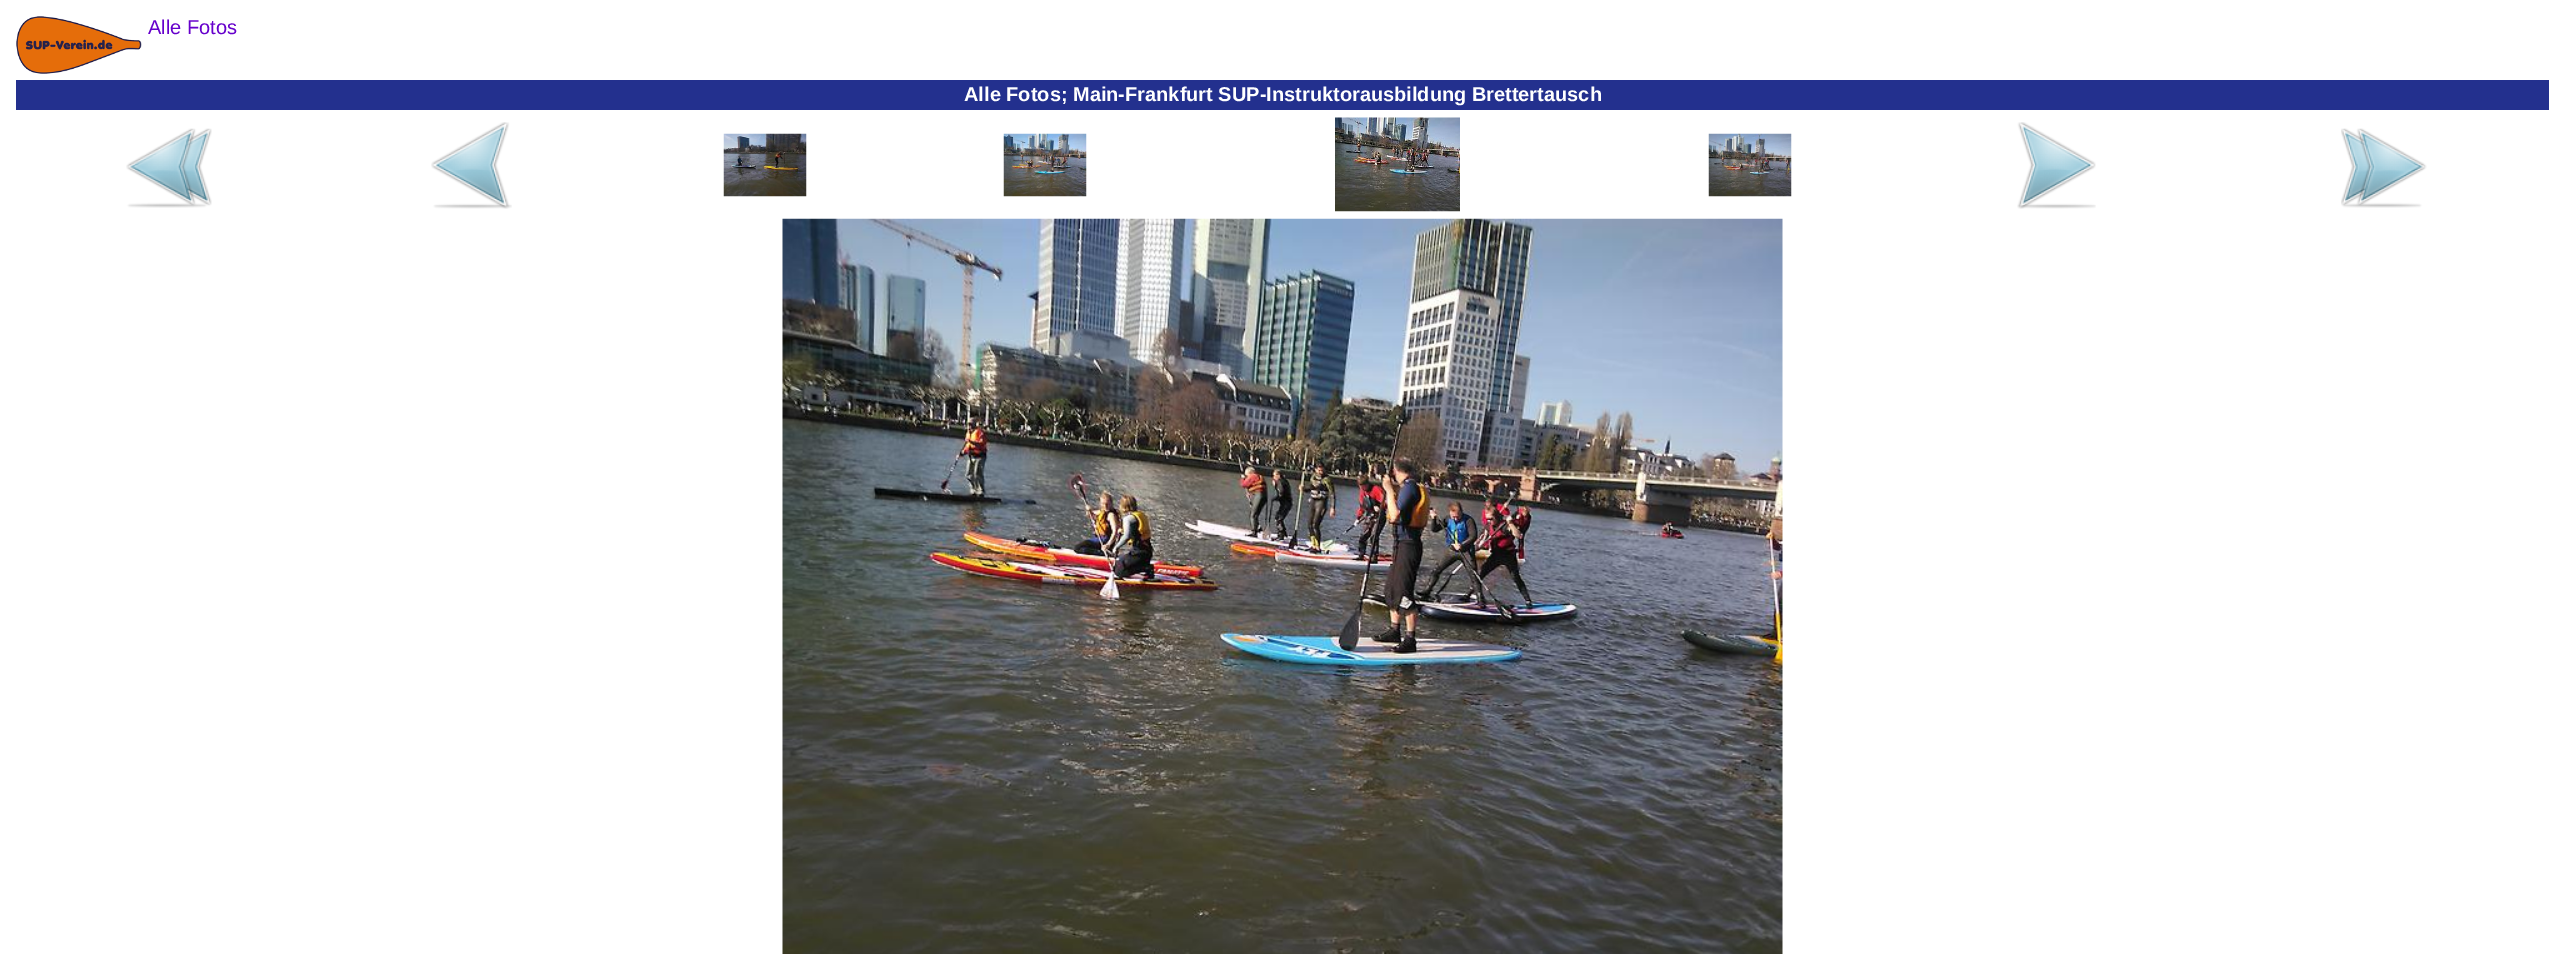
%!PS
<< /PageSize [2565 954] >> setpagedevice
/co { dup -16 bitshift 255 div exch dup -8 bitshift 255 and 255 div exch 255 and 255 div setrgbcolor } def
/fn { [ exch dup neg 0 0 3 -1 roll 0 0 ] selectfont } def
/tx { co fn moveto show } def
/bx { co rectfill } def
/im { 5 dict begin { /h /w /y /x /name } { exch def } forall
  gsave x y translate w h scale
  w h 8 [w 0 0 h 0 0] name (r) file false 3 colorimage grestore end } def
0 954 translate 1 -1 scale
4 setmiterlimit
0 0 2565 954 16#FFFFFF bx
(media/1.raw) 16 16 126 58 im
16 80 2533 30 16#23308E bx
(media/2.raw) 126 128 86 80 im
(media/3.raw) 431 122 81 87 im
(media/4.raw) 723 133 84 64 im
(media/5.raw) 1003 133 84 64 im
(media/6.raw) 1335 117 125 95 im
(media/7.raw) 1708 133 84 64 im
(media/8.raw) 2017 122 79 87 im
(media/9.raw) 2341 128 86 80 im
(media/10.raw) 782 218 1001 736 im
(Alle Fotos) 148 34 /LiberationSans-Regular 20 16#6600CC tx
(Alle Fotos; Main-Frankfurt SUP-Instruktorausbildung Brettertausch) 964 101 /LiberationSans-Bold 20 16#FFFFFF tx
showpage
